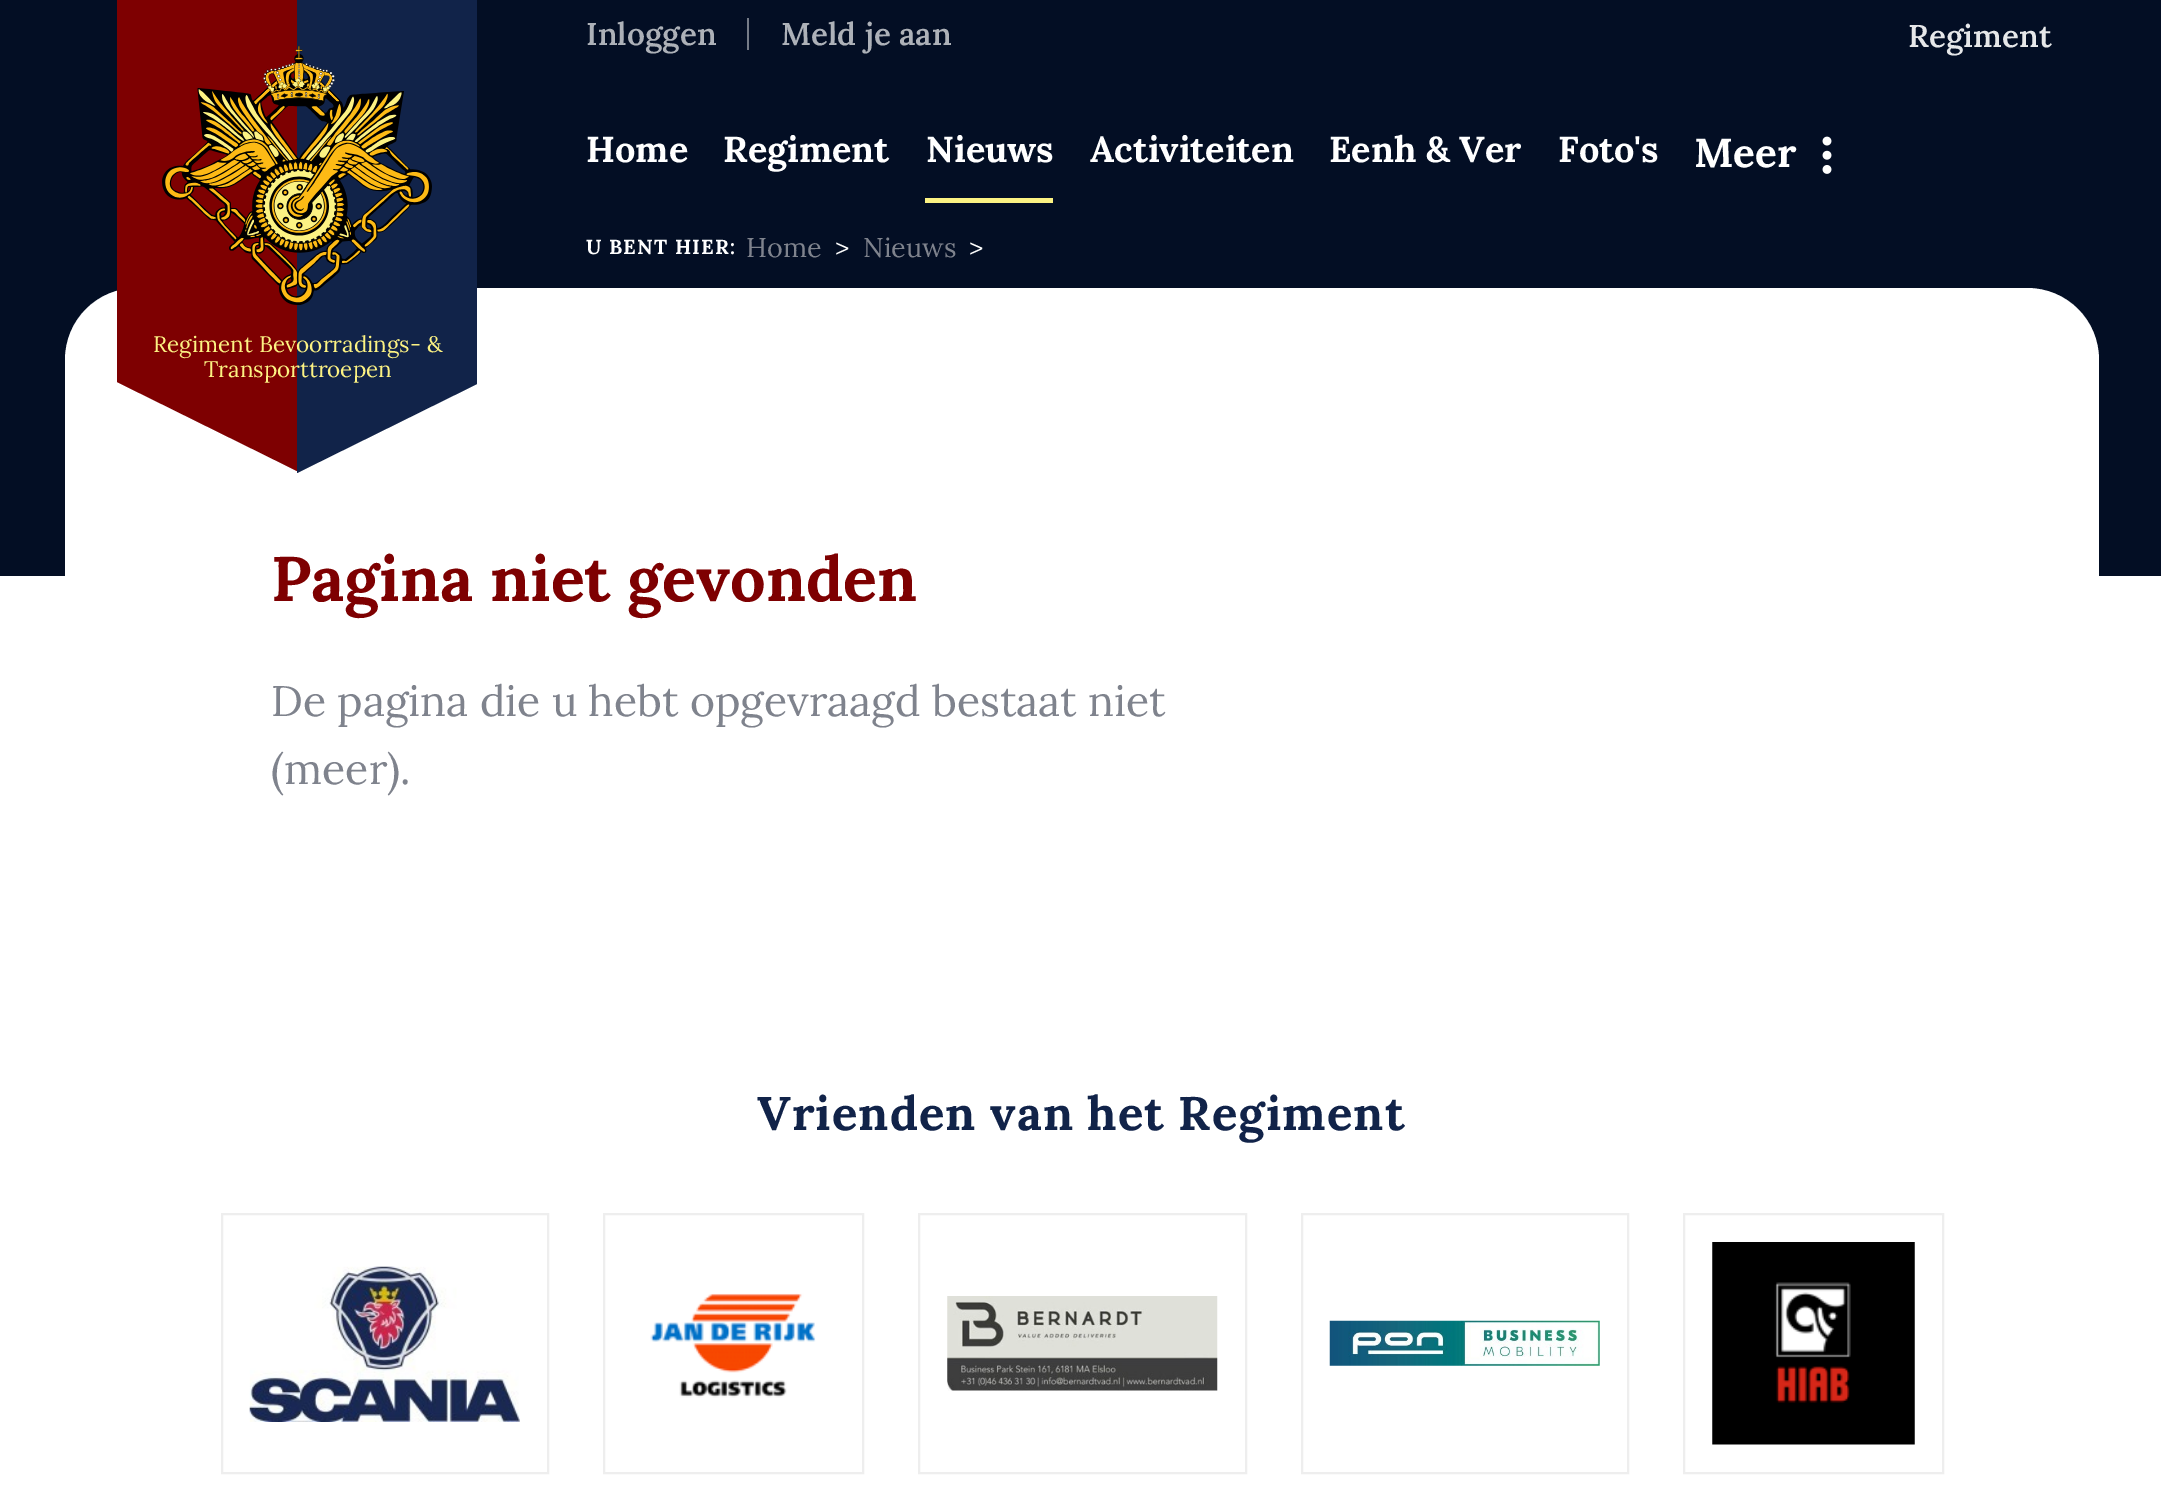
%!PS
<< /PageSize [2161 1504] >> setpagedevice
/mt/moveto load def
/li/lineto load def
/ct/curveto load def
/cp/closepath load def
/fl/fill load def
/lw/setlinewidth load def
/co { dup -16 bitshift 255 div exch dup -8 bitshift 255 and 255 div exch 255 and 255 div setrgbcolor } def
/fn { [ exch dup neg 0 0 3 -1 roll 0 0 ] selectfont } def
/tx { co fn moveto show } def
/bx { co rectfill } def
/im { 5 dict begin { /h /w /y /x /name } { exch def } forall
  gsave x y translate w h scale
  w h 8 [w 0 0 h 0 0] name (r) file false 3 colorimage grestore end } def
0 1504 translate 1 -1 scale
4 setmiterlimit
0 0 2161 1504 16#FFFFFF bx
0 0 2161 576 16#030E24 bx
747 18 2 32 16#757B87 bx
925 198 128 5 16#FCF283 bx
(media/1.raw) 1822 136 10 38 im
16#FFFFFF co
137 288 mt 2027 288 li 2067 288 2099 320 2099 360 ct 2099 918 li 65 918 li 65 360 li 65 320 97 288 137 288 ct cp fl
16#112349 co
477 -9 mt 297 -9 li 297 473 li 477 384 li cp fl
16#7E0001 co
117 -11 mt 297 -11 li 297 471 li 117 382 li cp fl
(media/2.raw) 162 46 270 259 im
16#EEEEEE co
2 lw
222 1214 326 259 rectstroke
(media/3.raw) 249 1266 271 156 im
604 1214 259 259 rectstroke
(media/4.raw) 650 1293 166 105 im
919 1214 327 259 rectstroke
(media/5.raw) 947 1296 271 95 im
1302 1214 326 259 rectstroke
(media/6.raw) 1329 1320 271 46 im
1684 1214 259 259 rectstroke
(media/7.raw) 1712 1242 203 203 im
(Inloggen) 586 45 /Lora-SemiBold 31.5 16#ADB1B8 tx
(Meld je aan) 781 45 /Lora-SemiBold 31.5 16#ADB1B8 tx
(Regiment) 1908 47 /Lora-SemiBold 31.5 16#E6E7E9 tx
(Home) 586 162 /Lora-Bold 36 16#FFFFFF tx
(Regiment) 723 162 /Lora-Bold 36 16#FFFFFF tx
(Nieuws) 926 162 /Lora-Bold 36 16#FFFFFF tx
(Activiteiten) 1090 162 /Lora-Bold 36 16#FFFFFF tx
(Eenh & Ver) 1329 162 /Lora-Bold 36 16#FFFFFF tx
(Foto's) 1558 162 /Lora-Bold 36 16#FFFFFF tx
(Meer) 1694 167 /Lora-Bold 40.5 16#FFFFFF tx
/Lora-Bold 20.25 fn
586 254 mt 1.1 0 (U BENT HIER:) ashow
(Home) 746 257 /Lora-Regular 27 16#7F838D tx
(>) 835 257 /Lora-Regular 27 16#FFFFFF tx
(Nieuws) 863 257 /Lora-Regular 27 16#7F838D tx
(>) 969 257 /Lora-Regular 27 16#FFFFFF tx
(Regiment Bevoorradings- &) 153 352 /Lora-Regular 22.5 16#FCF283 tx
(Transporttroepen) 204 377 /Lora-Regular 22.5 16#FCF283 tx
(Pagina niet gevonden) 271 601 /Lora-Bold 63 16#7E0001 tx
(De pagina die u hebt opgevraagd bestaat niet) 271 716 /Lora-Regular 42.75 16#7F838D tx
(\(meer\).) 271 784 /Lora-Regular 42.75 16#7F838D tx
/Lora-Bold 47.25 fn
16#112349 co
757 1130 mt 1.1 0 (Vrienden van het Regiment) ashow
showpage
